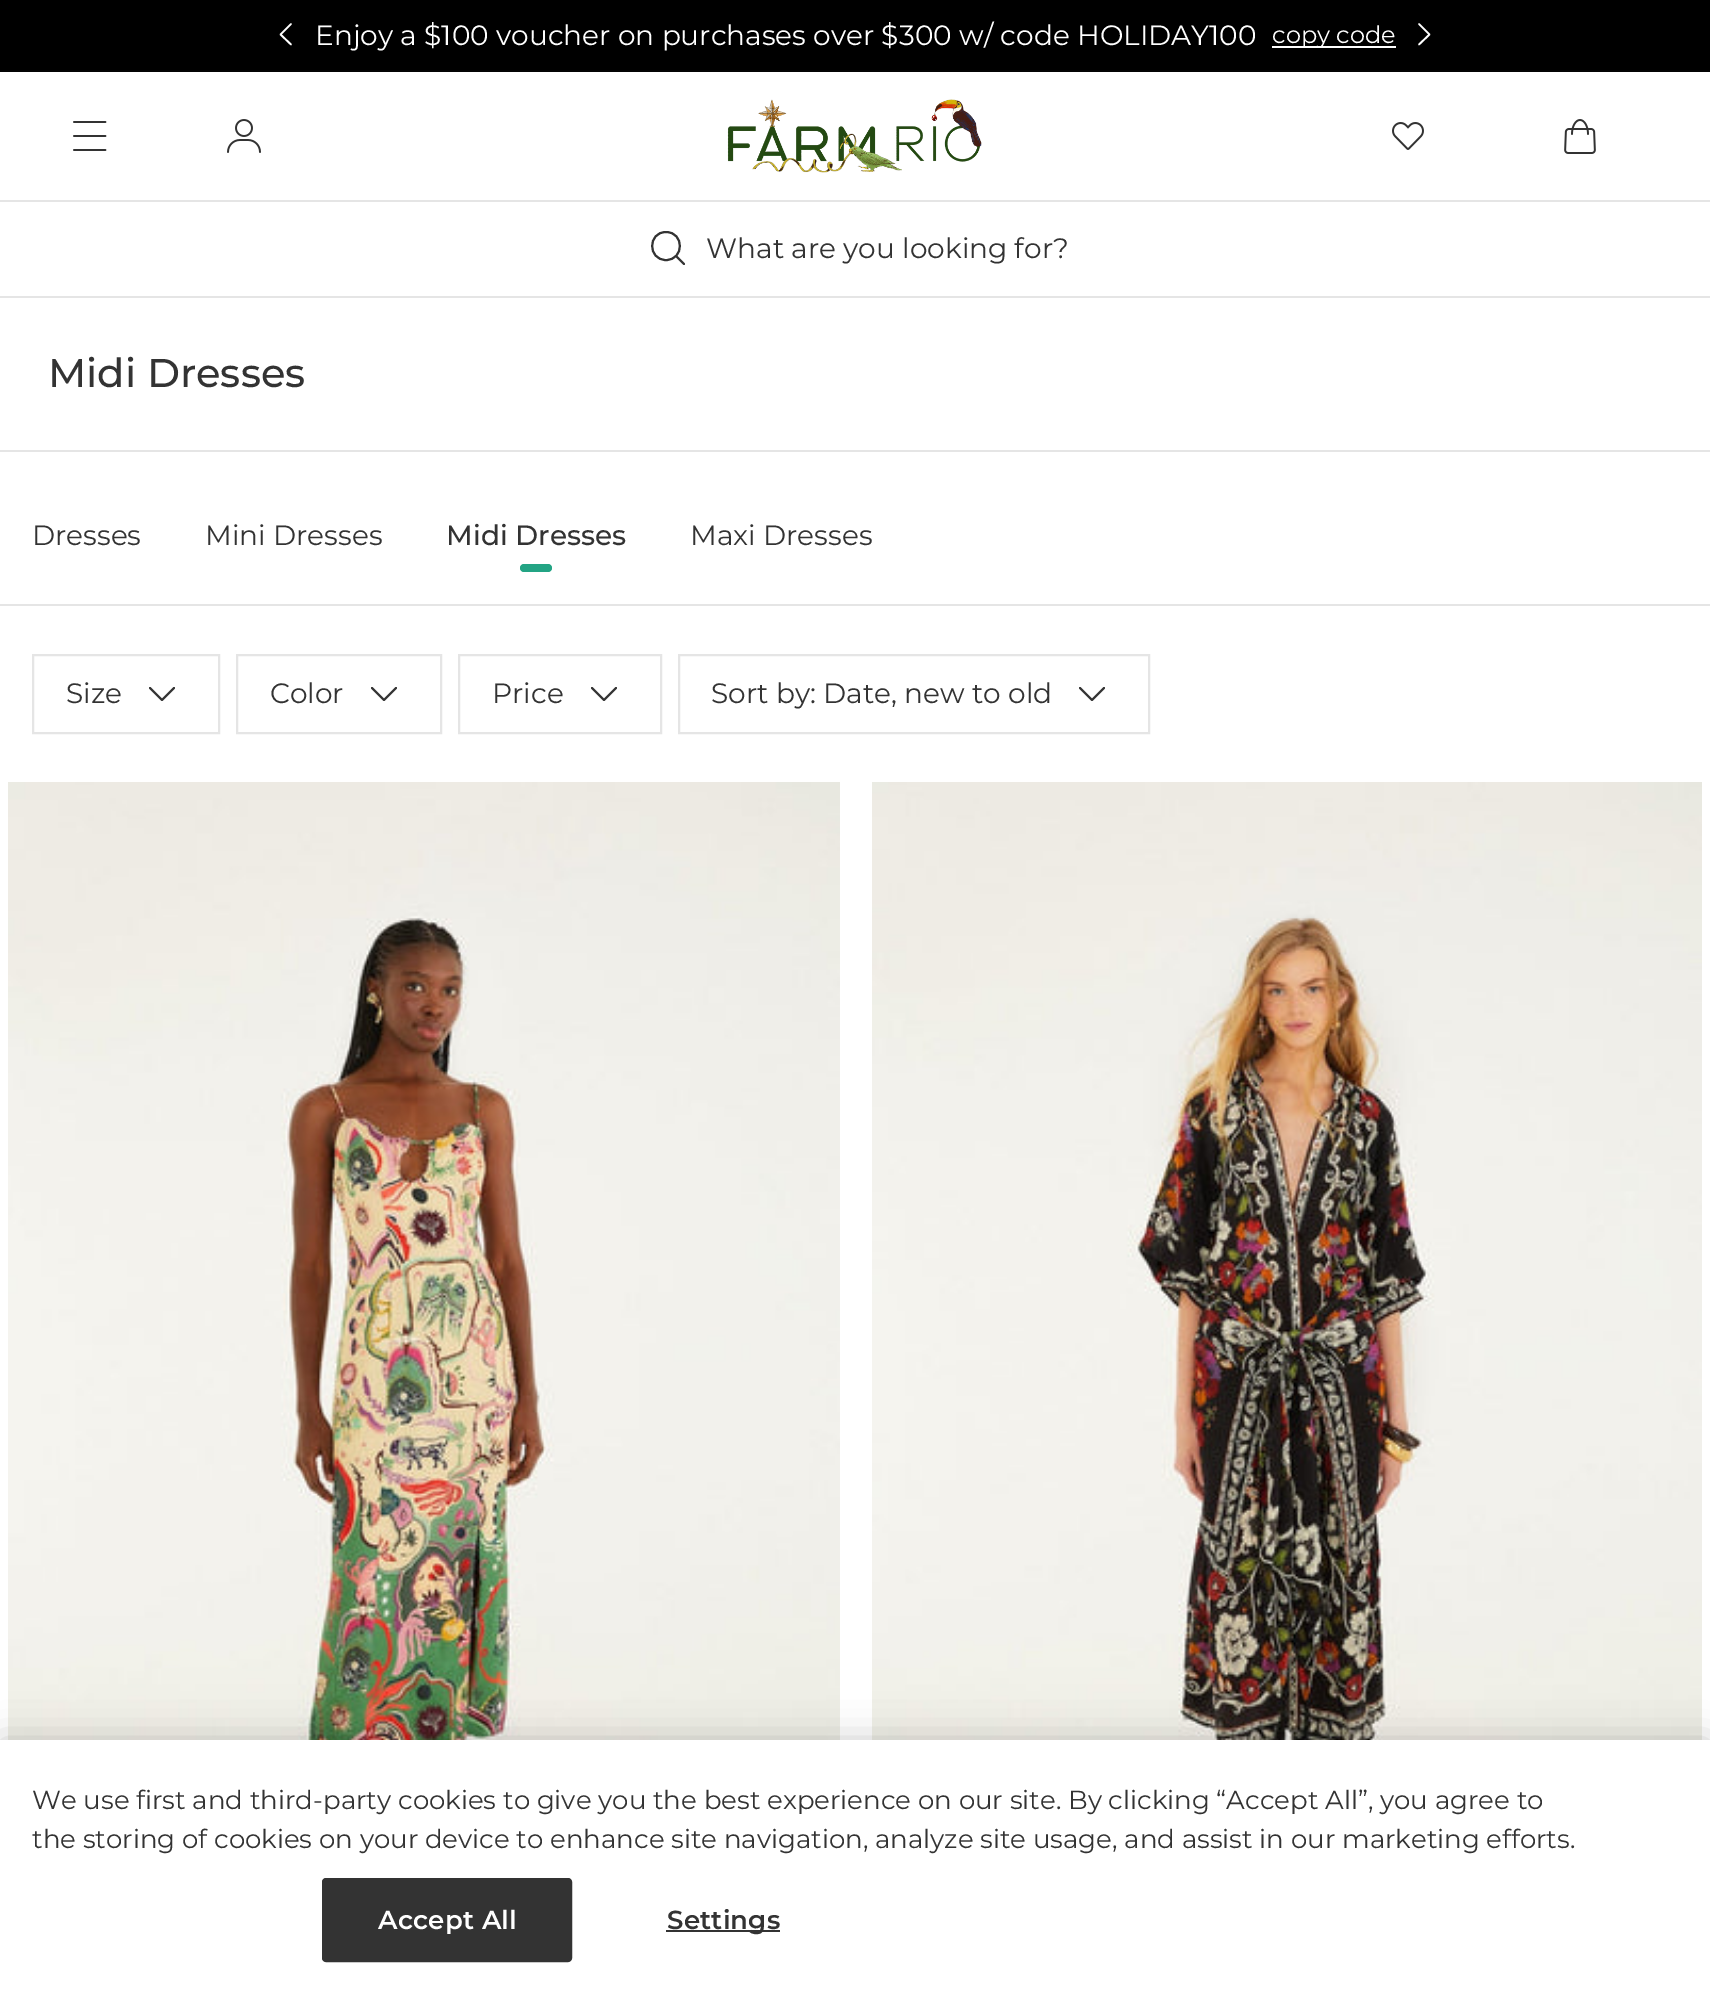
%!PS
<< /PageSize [1710 1994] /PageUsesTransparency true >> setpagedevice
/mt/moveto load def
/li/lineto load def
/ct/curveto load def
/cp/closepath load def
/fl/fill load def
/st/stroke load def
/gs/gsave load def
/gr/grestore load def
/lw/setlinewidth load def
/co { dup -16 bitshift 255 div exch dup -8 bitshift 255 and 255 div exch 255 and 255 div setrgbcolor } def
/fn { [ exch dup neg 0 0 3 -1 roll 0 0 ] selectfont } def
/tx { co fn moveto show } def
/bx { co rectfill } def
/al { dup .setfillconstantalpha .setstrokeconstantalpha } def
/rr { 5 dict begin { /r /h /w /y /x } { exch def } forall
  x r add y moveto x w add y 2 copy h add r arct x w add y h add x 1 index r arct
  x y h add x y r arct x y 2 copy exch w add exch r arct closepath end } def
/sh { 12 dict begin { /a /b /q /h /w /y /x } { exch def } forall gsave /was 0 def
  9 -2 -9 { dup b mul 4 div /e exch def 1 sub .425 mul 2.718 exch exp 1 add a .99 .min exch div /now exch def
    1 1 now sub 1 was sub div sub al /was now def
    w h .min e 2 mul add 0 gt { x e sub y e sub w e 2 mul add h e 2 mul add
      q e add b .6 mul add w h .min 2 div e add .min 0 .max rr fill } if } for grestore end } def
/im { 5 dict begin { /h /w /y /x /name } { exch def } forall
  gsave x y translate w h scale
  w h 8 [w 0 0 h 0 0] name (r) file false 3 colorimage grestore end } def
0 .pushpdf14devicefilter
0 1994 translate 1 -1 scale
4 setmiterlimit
0 0 1710 1994 16#FFFFFF bx
0 0 1710 70 16#000000 bx
0 70 1710 2 16#040404 bx
16#FFFFFF co
1.7 lw
1 setlinecap
1 setlinejoin
291 44.5 mt 280.5 34.5 li 291 24 li st
1272 46 124 2 16#FFFFFF bx
1419 24 mt 1429.5 34.5 li 1419 44.5 li st
0 296 1710 2 16#E5E5E5 bx
(media/1.raw) 73 121 34 30 im
(media/2.raw) 227 119 34 34 im
(media/3.raw) 727 99 255 74 im
(media/4.raw) 1392 122 32 28 im
(media/5.raw) 1564 119 32 35 im
0 200 1710 2 16#E5E5E5 bx
16#333333 co
2 lw
0 setlinejoin
666 260 mt 684.5 260 684.5 232 666 232 ct 647.5 232 647.5 260 666 260 ct cp 676 256 mt 684 264 li st
0 450 1710 2 16#E5E5E5 bx
0 604 1710 2 16#E5E5E5 bx
16#23A484 co
520 564 32 8 4 rr fl
16#E5E5E5 co
0 setlinecap
33 655 186 78 rectstroke
16#333333 co
1 setlinecap
1 setlinejoin
174 688 mt 162 700 li 150 688 li st
16#E5E5E5 co
0 setlinecap
0 setlinejoin
237 655 204 78 rectstroke
16#333333 co
1 setlinecap
1 setlinejoin
396 688 mt 384 700 li 372 688 li st
16#E5E5E5 co
0 setlinecap
0 setlinejoin
459 655 202 78 rectstroke
16#333333 co
1 setlinecap
1 setlinejoin
616 688 mt 604 700 li 592 688 li st
16#E5E5E5 co
0 setlinecap
0 setlinejoin
679 655 470 78 rectstroke
16#333333 co
1 setlinecap
1 setlinejoin
1104 688 mt 1092 700 li 1080 688 li st
(media/6.raw) 8 782 832 958 im
(media/7.raw) 872 782 830 958 im
16#000000 co
0 1740 1710 254 0 18 .2 sh
0 1740 1710 254 16#FFFFFF bx
16#333333 co
323 1879 248 82 3 rr gs fl gr
0 setlinecap
0 setlinejoin
st
666 1930 114 2 16#333333 bx
(Enjoy a $100 voucher on purchases over $300 w/ code HOLIDAY100) 315 45 /Montserrat-Regular 28 16#FFFFFF tx
(copy code) 1272 43 /Montserrat-Regular 24 16#FFFFFF tx
(What are you looking for?) 706 258 /Montserrat-Regular 28 16#333333 tx
(Midi Dresses) 48 387 /Montserrat-Medium 40 16#333333 tx
(Dresses) 32 545 /Montserrat-Regular 28 16#333333 tx
(Mini Dresses) 205 545 /Montserrat-Regular 28 16#333333 tx
(Midi Dresses) 446 545 /Montserrat-Medium 28 16#333333 tx
(Maxi Dresses) 690 545 /Montserrat-Regular 28 16#333333 tx
(Size) 66 703 /Montserrat-Regular 28 16#333333 tx
(Color) 270 703 /Montserrat-Regular 28 16#333333 tx
(Price) 492 703 /Montserrat-Regular 28 16#333333 tx
(Sort by: Date, new to old) 711 703 /Montserrat-Regular 28 16#333333 tx
(We use first and third-party cookies to give you the best experience on our site. By clicking “Accept All”, you agree to) 32 1809 /Montserrat-Regular 26.02 16#333333 tx
(the storing of cookies on your device to enhance site navigation, analyze site usage, and assist in our marketing efforts.) 32 1848 /Montserrat-Regular 26.02 16#333333 tx
/Montserrat-SemiBold 26.02 fn
16#FFFFFF co
378 1929 mt .25 0 (Accept All) ashow
16#333333 co
667 1929 mt .25 0 (Settings) ashow
.poppdf14devicefilter showpage
